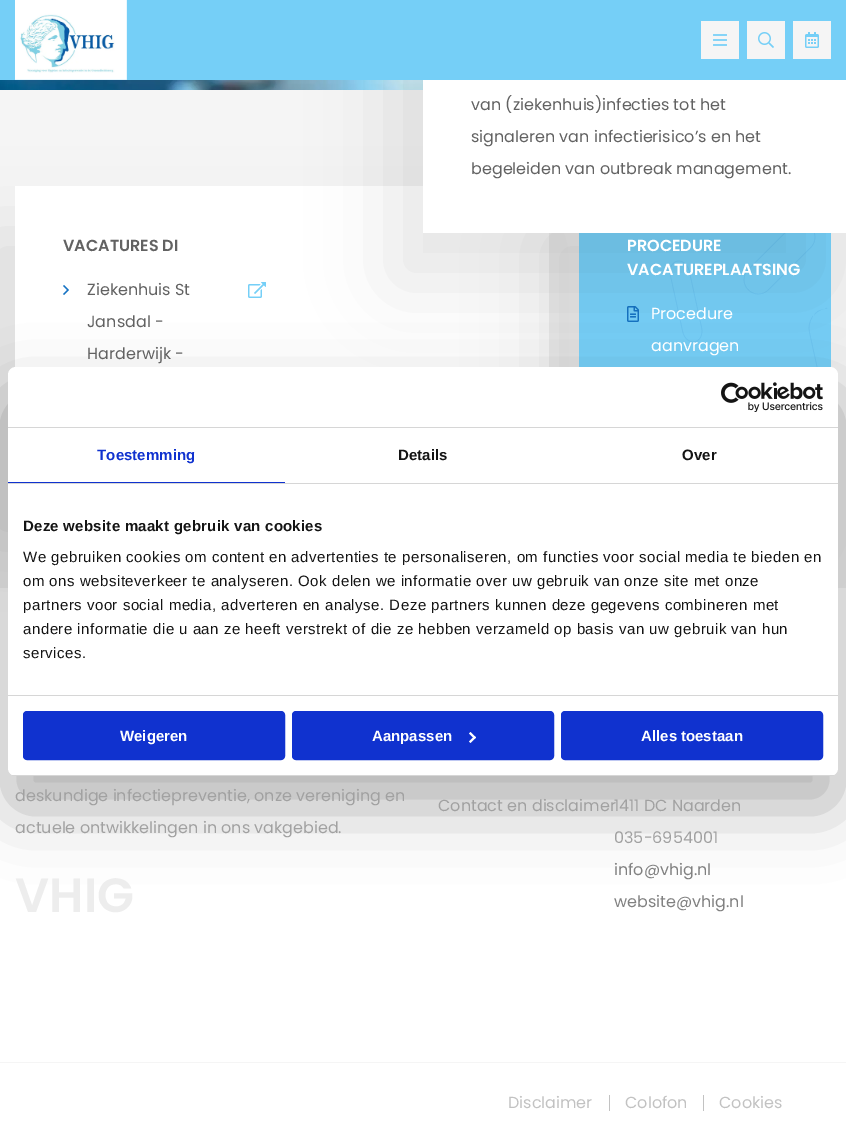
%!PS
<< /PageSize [846 1143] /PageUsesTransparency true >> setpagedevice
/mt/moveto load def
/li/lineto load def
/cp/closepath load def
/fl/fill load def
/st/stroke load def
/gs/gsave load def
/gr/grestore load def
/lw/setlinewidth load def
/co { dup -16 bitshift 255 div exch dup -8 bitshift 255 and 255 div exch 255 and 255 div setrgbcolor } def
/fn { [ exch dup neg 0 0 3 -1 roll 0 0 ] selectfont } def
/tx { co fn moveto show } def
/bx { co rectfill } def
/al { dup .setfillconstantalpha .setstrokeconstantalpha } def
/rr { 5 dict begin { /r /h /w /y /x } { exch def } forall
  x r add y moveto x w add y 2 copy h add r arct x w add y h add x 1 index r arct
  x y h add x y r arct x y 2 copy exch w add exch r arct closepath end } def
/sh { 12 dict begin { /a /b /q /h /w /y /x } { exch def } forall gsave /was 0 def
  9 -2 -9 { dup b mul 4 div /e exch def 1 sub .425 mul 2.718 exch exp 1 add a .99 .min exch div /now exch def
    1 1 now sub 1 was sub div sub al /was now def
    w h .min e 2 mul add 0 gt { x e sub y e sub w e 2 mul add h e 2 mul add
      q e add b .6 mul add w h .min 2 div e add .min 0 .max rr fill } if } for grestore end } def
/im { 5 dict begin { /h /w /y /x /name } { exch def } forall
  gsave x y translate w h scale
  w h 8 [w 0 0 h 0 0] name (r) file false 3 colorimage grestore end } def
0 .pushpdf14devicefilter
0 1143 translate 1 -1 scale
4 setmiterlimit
0 0 846 1143 16#F5F5F5 bx
(media/5.raw) 0 80 423 10 im
0 588 846 555 16#FFFFFF bx
16#000000 co
-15 236 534 306 0 40 .1 sh
15 186 534 182 16#FFFFFF bx
16#000000 co
549 236 252 306 0 40 .1 sh
579 233 252 135 16#75CFF7 bx
(media/8.raw) 669 233 159 134 im
(media/9.raw) 627 306 12 16 im
(media/10.raw) 813 307 18 10 im
16#000000 co
393 -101 423 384 0 40 .1 sh
0 0 846 80 16#75CFF7 bx
(media/1.raw) 15 0 112 80 im
701 21 38 38 16#F5F5F5 bx
(media/2.raw) 713 34 14 12 im
747 21 38 38 16#F5F5F5 bx
(media/3.raw) 758 32 16 16 im
793 21 38 38 16#F5F5F5 bx
(media/4.raw) 805 32 14 16 im
423 80 423 153 16#FFFFFF bx
(media/6.raw) 63 285 6 10 im
(media/7.raw) 248 282 18 16 im
16#000000 co
8 399 830 409 8 34 .3 sh
16#FFFFFF co
8 367 830 409 8 rr fl
8 427 830 1 16#D6D6D6 bx
(media/11.raw) 721 382 102 30 im
8 483 830 1 16#D6D6D6 bx
8 482 277 1 16#1032CF bx
8 695 830 1 16#D6D6D6 bx
gs
8 367 830 409 8 rr clip newpath
8 775 830 1 16#D6D6D6 bx
gr
16#1032CF co
24 712 260 47 3 rr gs fl gr
2 lw
st
293 712 260 47 3 rr gs fl gr
st
16#FFFFFF co
470.5 732 mt 476 737.5 li 474.5 739 li 469 733.5 li cp fl
474.5 736 mt 476 737.5 li 470.5 743 li 469 741.5 li cp fl
16#1032CF co
562 712 260 47 3 rr gs fl gr
st
0 1062 846 1 16#F5F5F5 bx
609 1095 1 16 16#C2C2C2 bx
703 1095 1 16 16#C2C2C2 bx
(van \(ziekenhuis\)infecties tot het) 471 110 /Poppins-Regular 16 16#626262 tx
(signaleren van infectierisico’s en het) 471 142 /Poppins-Regular 16 16#626262 tx
(begeleiden van outbreak management.) 471 174 /Poppins-Regular 16 16#626262 tx
(VACATURES DI) 63 251 /Poppins-SemiBold 16 16#626262 tx
(Ziekenhuis St) 87 295 /Poppins-Regular 16 16#626262 tx
(Jansdal -) 87 327 /Poppins-Regular 16 16#626262 tx
(Harderwijk -) 87 359 /Poppins-Regular 16 16#626262 tx
(PROCEDURE) 627 251 /Poppins-SemiBold 16 16#FFFFFF tx
(VACATUREPLAATSING) 627 275 /Poppins-SemiBold 16 16#FFFFFF tx
(Procedure) 651 319 /Poppins-Regular 16 16#FFFFFF tx
(aanvragen) 651 351 /Poppins-Regular 16 16#FFFFFF tx
/LiberationSans-Bold 15 fn
16#1032CF co
97 460 mt .1 0 (Toestemming) ashow
16#141414 co
398 460 mt .1 0 (Details) ashow
682 460 mt .1 0 (Over) ashow
23 531 mt .25 0 (Deze website maakt gebruik van cookies) ashow
/LiberationSans-Regular 15 fn
23 562 mt .5 0 (We gebruiken cookies om content en advertenties te personaliseren, om functies voor social media te bieden en) ashow
23 586 mt .5 0 (om ons websiteverkeer te analyseren. Ook delen we informatie over uw gebruik van onze site met onze) ashow
23 610 mt .5 0 (partners voor social media, adverteren en analyse. Deze partners kunnen deze gegevens combineren met) ashow
23 634 mt .5 0 (andere informatie die u aan ze heeft verstrekt of die ze hebben verzameld op basis van uw gebruik van hun) ashow
23 658 mt .5 0 (services.) ashow
(Weigeren) 120 741 /LiberationSans-Bold 15 16#FFFFFF tx
(Aanpassen) 372 741 /LiberationSans-Bold 15 16#FFFFFF tx
(Alles toestaan) 641 741 /LiberationSans-Bold 15 16#FFFFFF tx
(deskundige infectiepreventie, onze vereniging en) 15 801 /Poppins-Regular 16 16#A1A1A1 tx
(actuele ontwikkelingen in ons vakgebied.) 15 833 /Poppins-Regular 16 16#A1A1A1 tx
(VHIG) 15 912 /Poppins-SemiBold 48 16#EDEDED tx
(1411 DC Naarden) 614 811 /Poppins-Regular 16 16#A1A1A1 tx
(Contact en disclaimer) 438 811 /Poppins-Regular 16 16#A1A1A1 tx
(035-6954001) 614 843 /Poppins-Regular 16 16#A1A1A1 tx
(info@vhig.nl) 614 875 /Poppins-Regular 16 16#818181 tx
(website@vhig.nl) 614 907 /Poppins-Regular 16 16#818181 tx
(Disclaimer) 508 1108 /Poppins-Regular 16 16#C2C2C2 tx
(Colofon) 625 1108 /Poppins-Regular 16 16#C2C2C2 tx
(Cookies) 719 1108 /Poppins-Regular 16 16#C2C2C2 tx
.poppdf14devicefilter showpage
